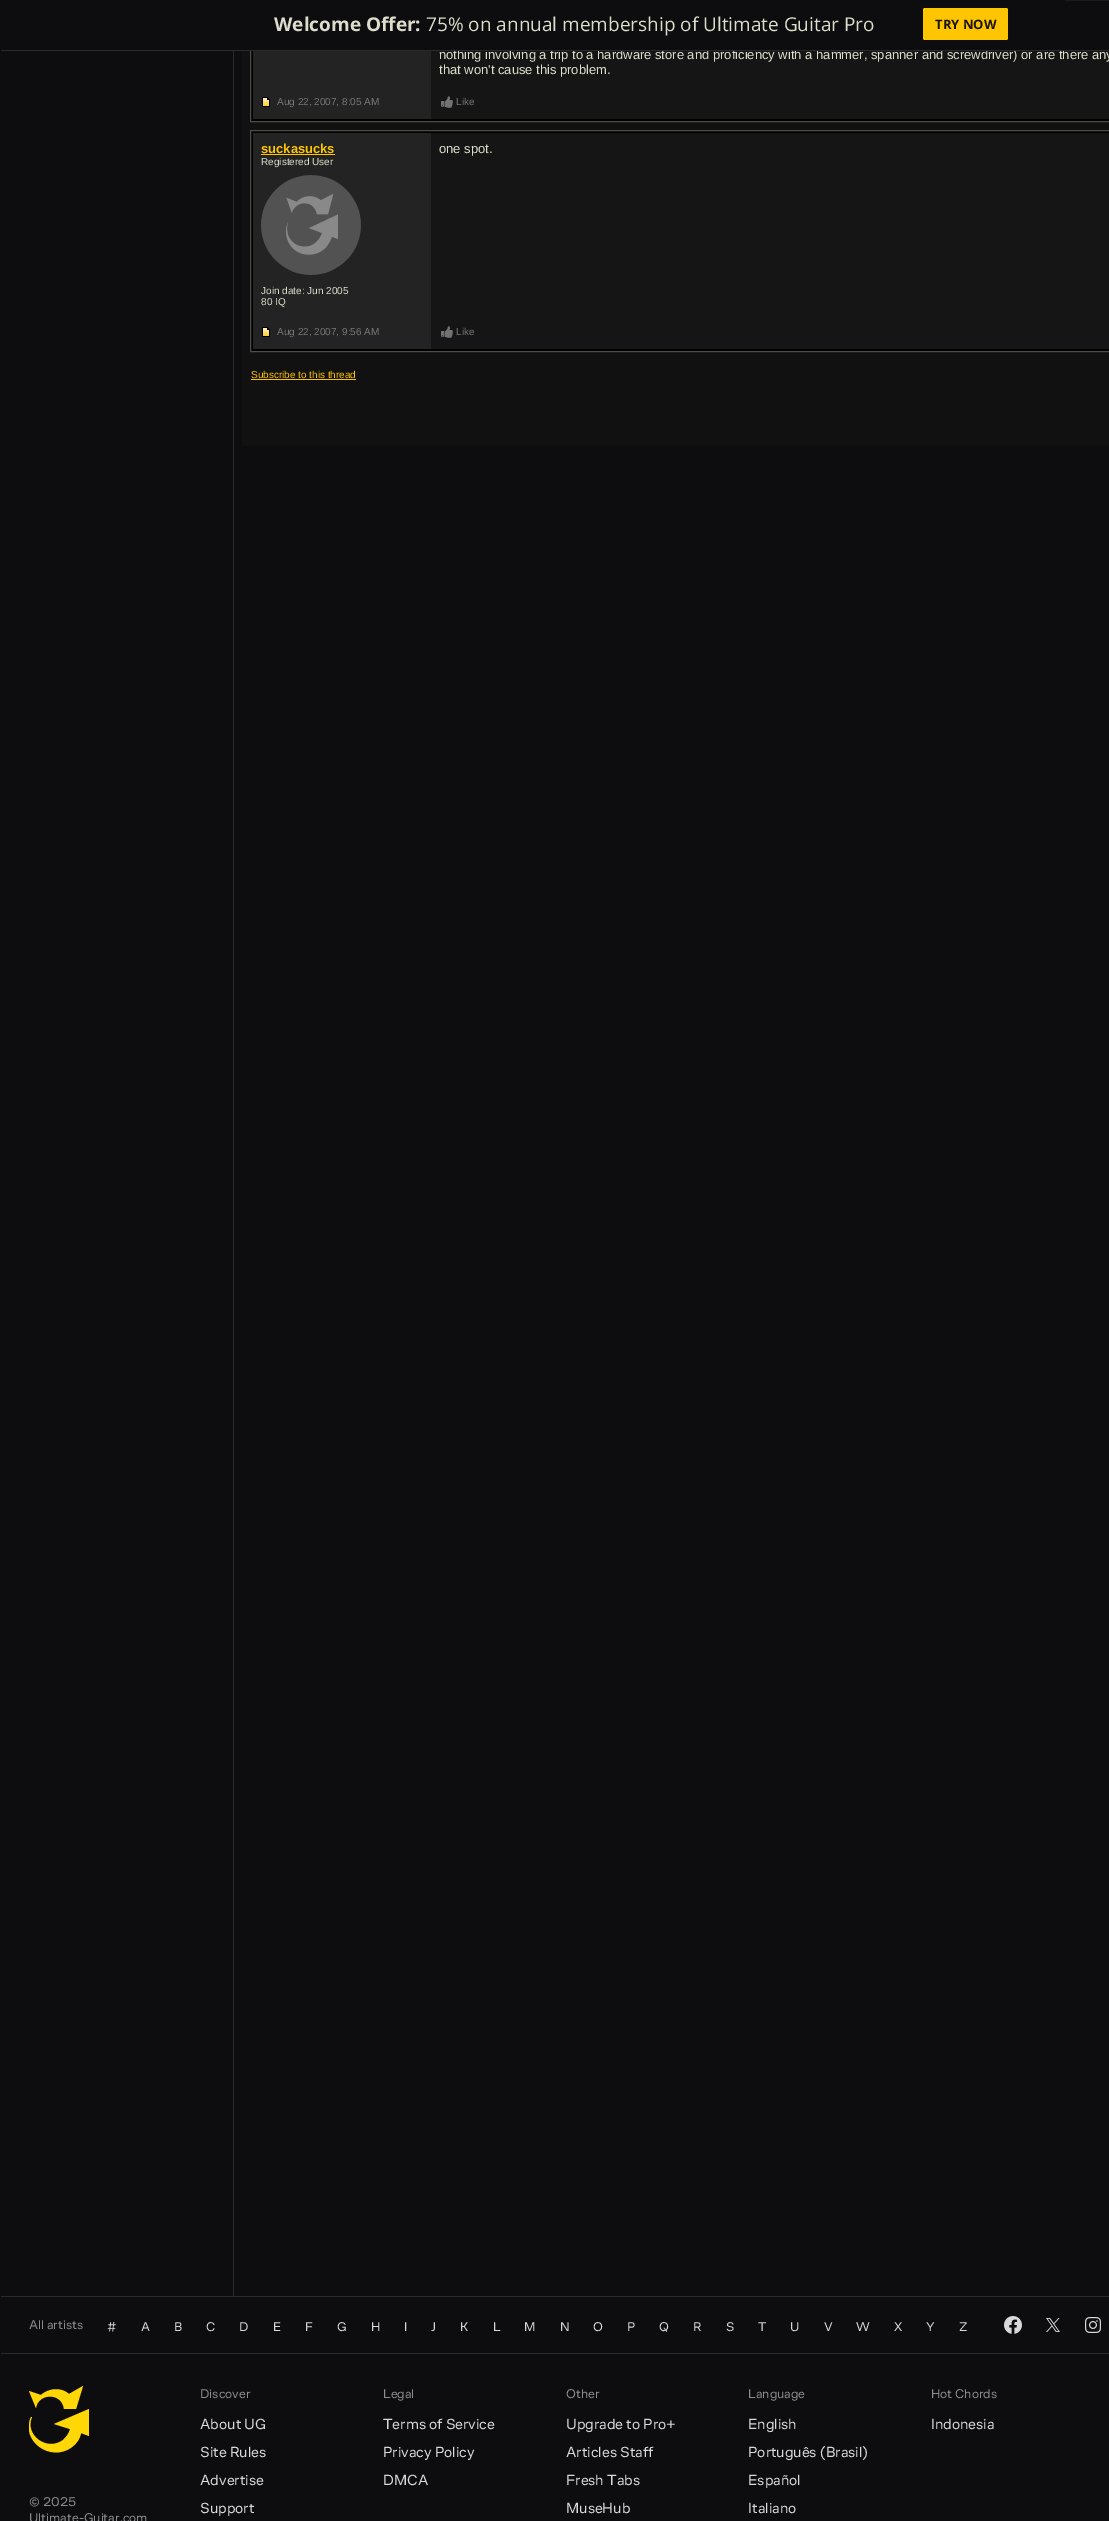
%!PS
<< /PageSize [1109 2521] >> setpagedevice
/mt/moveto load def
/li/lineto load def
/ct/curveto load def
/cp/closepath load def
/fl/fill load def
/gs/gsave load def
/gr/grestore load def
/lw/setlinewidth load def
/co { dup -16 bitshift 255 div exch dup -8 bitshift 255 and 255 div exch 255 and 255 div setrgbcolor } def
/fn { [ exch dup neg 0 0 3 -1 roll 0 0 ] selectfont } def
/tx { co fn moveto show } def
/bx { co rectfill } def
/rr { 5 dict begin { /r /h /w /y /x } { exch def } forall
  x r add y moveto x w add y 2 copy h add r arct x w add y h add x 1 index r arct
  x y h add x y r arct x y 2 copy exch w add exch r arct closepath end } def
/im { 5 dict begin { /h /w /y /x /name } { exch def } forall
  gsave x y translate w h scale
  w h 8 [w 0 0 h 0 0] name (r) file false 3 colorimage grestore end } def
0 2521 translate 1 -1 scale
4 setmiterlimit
0 0 1109 2521 16#0D0D10 bx
233 51 1 2245 16#2A2A2D bx
242 51 867 395 16#111111 bx
431 51 678 68 16#151515 bx
16#000000 co
2 lw
252 -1 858 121 rectstroke
16#4F4C46 co
1 lw
250.5 -.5 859 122 rectstroke
253 51 178 68 16#232323 bx
(media/1.raw) 262 97 8 10 im
(media/2.raw) 441 96 12 12 im
431 133 678 216 16#151515 bx
16#000000 co
2 lw
252 132 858 218 rectstroke
16#4F4C46 co
1 lw
250.5 130.5 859 221 rectstroke
253 133 178 216 16#232323 bx
261 154 74 1 16#FFC600 bx
(media/3.raw) 261 175 100 100 im
(media/1.raw) 262 327 8 10 im
(media/2.raw) 441 326 12 12 im
251 379 105 1 16#FFC600 bx
1 2296 1108 1 16#2A2A2D bx
(media/4.raw) 1004 2316 18 18 im
(media/5.raw) 1046 2318 14 14 im
(media/6.raw) 1085 2317 16 16 im
1 2353 1108 1 16#2A2A2D bx
gs
29 2386 60 67 rectclip
16#FFD706 co
36 2408 mt 38 2393 62 2392 64 2409 ct 76 2409 li 83 2386 li 69 2394 li 61 2387 49 2388 41 2395 ct 29 2391 li cp 54 2424 mt 70 2429 li 69 2434 66 2437 63 2440 ct 47 2452 24 2435 32 2417 ct 31 2417 li 20 2441 51 2463 72 2447 ct 77 2443 80 2439 81 2433 ct 89 2436 li 89 2409 li cp fl
gr
(nothing involving a trip to a hardware store and proficiency with a hammer, spanner and screwdriver\) or are there any) 439 59 /LiberationSans-Regular 13 16#DDDDCC tx
250 0 815 50 16#0D0D10 bx
16#FFC600 co
923 8 85 32 2 rr fl
(TRY NOW) 935 29 /OpenSans-Bold 13 16#1A1400 tx
(75% on annual membership of Ultimate Guitar Pro) 426 31 /OpenSans-Regular 19 16#DDDDCC tx
(Welcome Offer:) 274 31 /OpenSans-Bold 19 16#DDDDCC tx
1 50 1108 1 16#2A2A2D bx
(that won't cause this problem.) 439 74 /LiberationSans-Regular 13 16#DDDDCC tx
(Aug 22, 2007, 8:05 AM) 277 105 /LiberationSans-Regular 10 16#777777 tx
(Like) 456 105 /LiberationSans-Regular 10 16#777777 tx
(suckasucks) 261 153 /LiberationSans-Bold 13 16#FFC600 tx
(Registered User) 261 165 /LiberationSans-Regular 10 16#DDDDCC tx
(Join date: Jun 2005) 261 294 /LiberationSans-Regular 10 16#DDDDCC tx
(80 IQ) 261 305 /LiberationSans-Regular 10 16#DDDDCC tx
(one spot.) 439 153 /LiberationSans-Regular 13 16#DDDDCC tx
(Aug 22, 2007, 9:56 AM) 277 335 /LiberationSans-Regular 10 16#777777 tx
(Like) 456 335 /LiberationSans-Regular 10 16#777777 tx
(Subscribe to this thread) 251 378 /LiberationSans-Regular 10 16#FFC600 tx
(All artists) 29 2329 /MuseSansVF-Regular 13 16#8C8C8F tx
(#) 107 2331 /MuseSansVF-Regular 13 16#D9D9DC tx
(A) 141 2331 /MuseSansVF-Regular 13 16#D9D9DC tx
(B) 174 2331 /MuseSansVF-Regular 13 16#D9D9DC tx
(C) 206 2331 /MuseSansVF-Regular 13 16#D9D9DC tx
(D) 239 2331 /MuseSansVF-Regular 13 16#D9D9DC tx
(E) 273 2331 /MuseSansVF-Regular 13 16#D9D9DC tx
(F) 305 2331 /MuseSansVF-Regular 13 16#D9D9DC tx
(G) 337 2331 /MuseSansVF-Regular 13 16#D9D9DC tx
(H) 371 2331 /MuseSansVF-Regular 13 16#D9D9DC tx
(I) 404 2331 /MuseSansVF-Regular 13 16#D9D9DC tx
(J) 431 2331 /MuseSansVF-Regular 13 16#D9D9DC tx
(K) 460 2331 /MuseSansVF-Regular 13 16#D9D9DC tx
(L) 493 2331 /MuseSansVF-Regular 13 16#D9D9DC tx
(M) 524 2331 /MuseSansVF-Regular 13 16#D9D9DC tx
(N) 560 2331 /MuseSansVF-Regular 13 16#D9D9DC tx
(O) 593 2331 /MuseSansVF-Regular 13 16#D9D9DC tx
(P) 627 2331 /MuseSansVF-Regular 13 16#D9D9DC tx
(Q) 659 2331 /MuseSansVF-Regular 13 16#D9D9DC tx
(R) 693 2331 /MuseSansVF-Regular 13 16#D9D9DC tx
(S) 726 2331 /MuseSansVF-Regular 13 16#D9D9DC tx
(T) 758 2331 /MuseSansVF-Regular 13 16#D9D9DC tx
(U) 790 2331 /MuseSansVF-Regular 13 16#D9D9DC tx
(V) 824 2331 /MuseSansVF-Regular 13 16#D9D9DC tx
(W) 856 2331 /MuseSansVF-Regular 13 16#D9D9DC tx
(X) 894 2331 /MuseSansVF-Regular 13 16#D9D9DC tx
(Y) 926 2331 /MuseSansVF-Regular 13 16#D9D9DC tx
(Z) 959 2331 /MuseSansVF-Regular 13 16#D9D9DC tx
(Discover) 200 2398 /MuseSansVF-Regular 13 16#8C8C8F tx
(About UG) 200 2429 /MuseSansVF-Regular 15 16#D9D9DC tx
(Site Rules) 200 2457 /MuseSansVF-Regular 15 16#D9D9DC tx
(Advertise) 200 2485 /MuseSansVF-Regular 15 16#D9D9DC tx
(Support) 200 2513 /MuseSansVF-Regular 15 16#D9D9DC tx
(Legal) 383 2398 /MuseSansVF-Regular 13 16#8C8C8F tx
(Terms of Service) 383 2429 /MuseSansVF-Regular 15 16#D9D9DC tx
(Privacy Policy) 383 2457 /MuseSansVF-Regular 15 16#D9D9DC tx
(DMCA) 383 2485 /MuseSansVF-Regular 15 16#D9D9DC tx
(Other) 566 2398 /MuseSansVF-Regular 13 16#8C8C8F tx
(Upgrade to Pro+) 566 2429 /MuseSansVF-Regular 15 16#D9D9DC tx
(Articles Staff) 566 2457 /MuseSansVF-Regular 15 16#D9D9DC tx
(Fresh Tabs) 566 2485 /MuseSansVF-Regular 15 16#D9D9DC tx
(MuseHub) 566 2513 /MuseSansVF-Regular 15 16#D9D9DC tx
(Language) 748 2398 /MuseSansVF-Regular 13 16#8C8C8F tx
(English) 748 2429 /MuseSansVF-Regular 15 16#D9D9DC tx
(Português \(Brasil\)) 748 2457 /MuseSansVF-Regular 15 16#D9D9DC tx
(Español) 748 2485 /MuseSansVF-Regular 15 16#D9D9DC tx
(Italiano) 748 2513 /MuseSansVF-Regular 15 16#D9D9DC tx
(Hot Chords) 931 2398 /MuseSansVF-Regular 13 16#8C8C8F tx
(Indonesia) 931 2429 /MuseSansVF-Regular 15 16#D9D9DC tx
(© 2025) 29 2506 /MuseSansVF-Regular 13 16#8C8C8F tx
(Ultimate-Guitar.com) 29 2522 /MuseSansVF-Regular 13 16#8C8C8F tx
showpage
